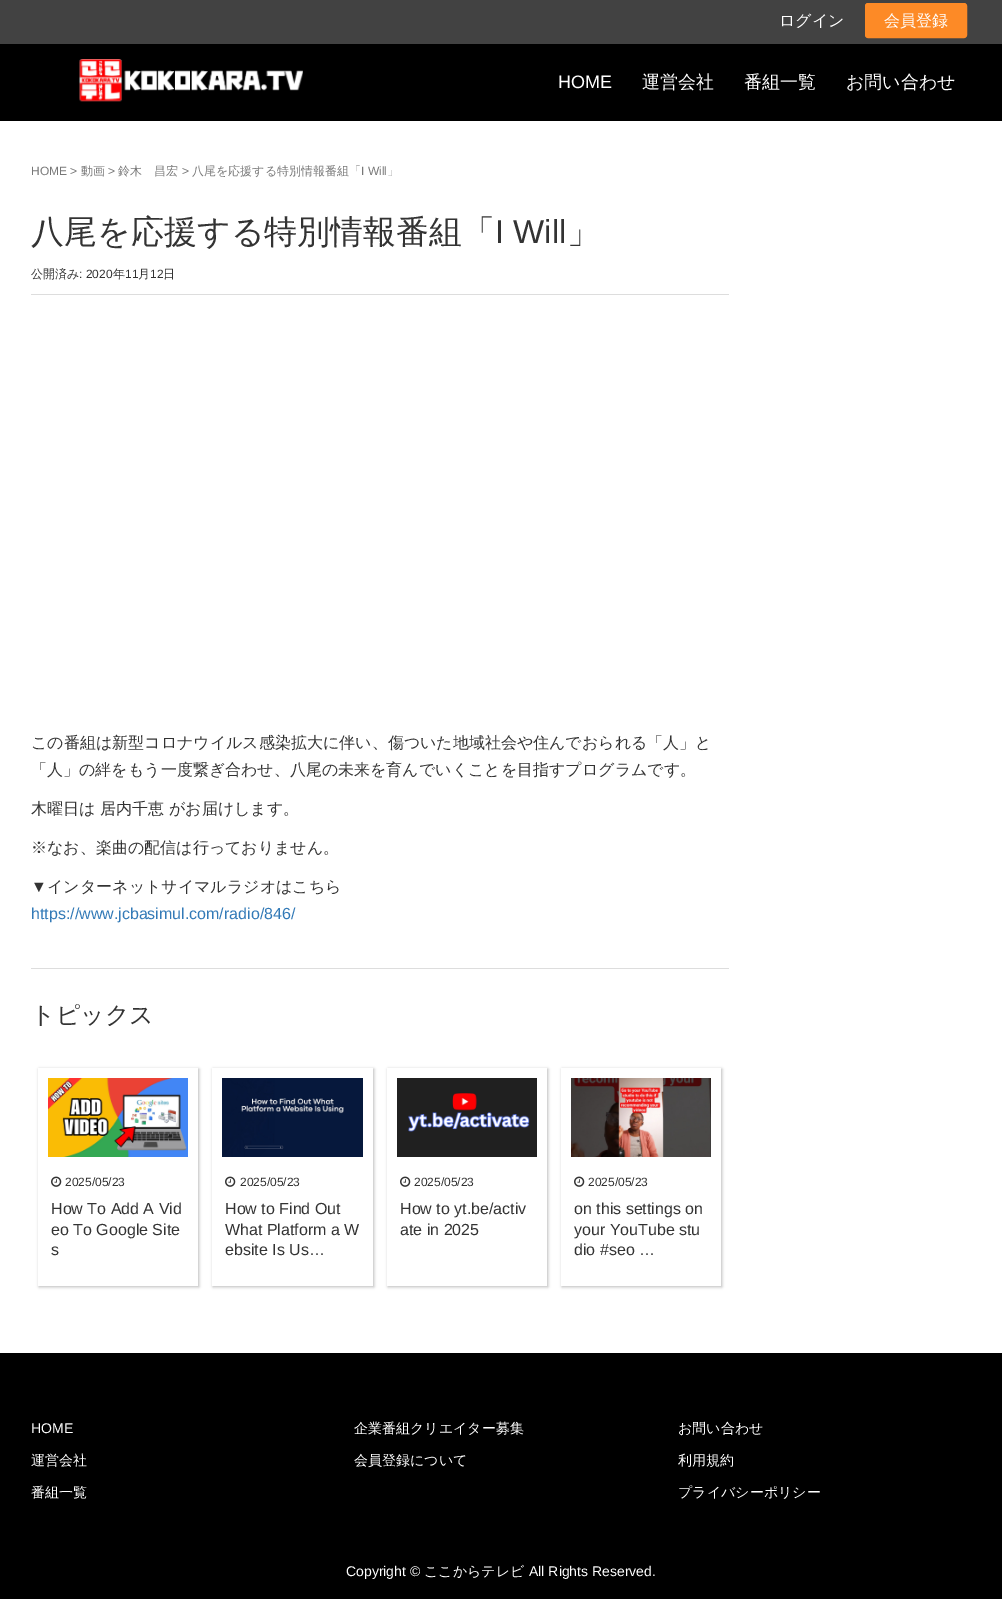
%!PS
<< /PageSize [1002 1599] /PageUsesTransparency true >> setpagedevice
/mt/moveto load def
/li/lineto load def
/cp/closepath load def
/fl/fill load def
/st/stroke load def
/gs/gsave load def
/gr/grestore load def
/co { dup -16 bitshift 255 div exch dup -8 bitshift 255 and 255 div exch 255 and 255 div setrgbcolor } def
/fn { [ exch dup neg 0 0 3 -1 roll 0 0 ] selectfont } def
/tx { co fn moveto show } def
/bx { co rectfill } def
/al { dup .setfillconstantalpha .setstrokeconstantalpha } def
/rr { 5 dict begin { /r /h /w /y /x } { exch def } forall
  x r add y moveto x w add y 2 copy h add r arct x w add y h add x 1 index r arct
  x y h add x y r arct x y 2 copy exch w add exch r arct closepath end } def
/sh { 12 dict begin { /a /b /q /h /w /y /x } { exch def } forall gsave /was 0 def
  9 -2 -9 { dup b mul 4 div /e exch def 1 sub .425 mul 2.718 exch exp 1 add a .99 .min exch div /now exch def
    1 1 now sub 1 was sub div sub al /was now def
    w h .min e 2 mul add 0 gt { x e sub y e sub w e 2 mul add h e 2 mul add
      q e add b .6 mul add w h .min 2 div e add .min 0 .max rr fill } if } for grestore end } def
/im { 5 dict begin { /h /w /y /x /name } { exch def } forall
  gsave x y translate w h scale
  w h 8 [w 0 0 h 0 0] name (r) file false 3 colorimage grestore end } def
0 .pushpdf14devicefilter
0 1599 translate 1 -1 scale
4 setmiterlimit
0 0 1002 1599 16#FFFFFF bx
0 0 1002 44 16#424242 bx
16#FD8A26 co
865.5 3.5 101 34 2.5 rr gs fl gr
st
0 44 1002 77 16#000000 bx
(media/1.raw) 79 59 224 43 im
31 294 698 1 16#DDDDDD bx
31 968 698 1 16#DDDDDD bx
gs
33 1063 mt 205 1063 li 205 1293 li 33 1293 li cp 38 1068 mt 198 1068 li 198 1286 li 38 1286 li cp eoclip newpath
16#000000 co
39 1069 160 218 0 1.5 .25 sh
gr
(media/2.raw) 48 1078 140 79 im
(media/3.raw) 51 1176 11 11 im
gs
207 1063 mt 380 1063 li 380 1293 li 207 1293 li cp 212 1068 mt 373 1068 li 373 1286 li 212 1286 li cp eoclip newpath
16#000000 co
213 1069 161 218 0 1.5 .25 sh
gr
(media/4.raw) 222 1078 141 79 im
(media/3.raw) 225 1176 11 11 im
gs
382 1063 mt 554 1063 li 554 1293 li 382 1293 li cp 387 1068 mt 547 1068 li 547 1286 li 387 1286 li cp eoclip newpath
16#000000 co
388 1069 160 218 0 1.5 .25 sh
gr
(media/5.raw) 397 1078 140 79 im
(media/3.raw) 400 1176 11 11 im
gs
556 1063 mt 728 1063 li 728 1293 li 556 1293 li cp 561 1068 mt 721 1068 li 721 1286 li 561 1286 li cp eoclip newpath
16#000000 co
562 1069 160 218 0 1.5 .25 sh
gr
(media/6.raw) 571 1078 140 79 im
(media/3.raw) 574 1176 11 11 im
0 1353 1002 246 16#000000 bx
(ログイン) 779 26 /WenQuanYiZenHei-Medium 16 16#FFFFFF tx
(会員登録) 884 26 /WenQuanYiZenHei-Medium 16 16#FFFFFF tx
(HOME) 558 88 /LiberationSans-Regular 18 16#FFFFFF tx
(運営会社) 642 88 /WenQuanYiZenHei-Medium 18 16#FFFFFF tx
(番組一覧) 744 88 /WenQuanYiZenHei-Medium 18 16#FFFFFF tx
(お問い合わせ) 846 88 /WenQuanYiZenHei-Medium 18 16#FFFFFF tx
(HOME >) 31 175 /LiberationSans-Regular 12 16#777777 tx
(動画) 81 175 /WenQuanYiZenHei-Medium 12 16#777777 tx
(>) 108 175 /LiberationSans-Regular 12 16#777777 tx
(鈴木　昌宏) 118 175 /WenQuanYiZenHei-Medium 12 16#777777 tx
(>) 182 175 /LiberationSans-Regular 12 16#777777 tx
(八尾を応援する特別情報番組「) 192 175 /WenQuanYiZenHei-Medium 12 16#777777 tx
(I Will) 361 175 /LiberationSans-Regular 12 16#777777 tx
(」) 387 175 /WenQuanYiZenHei-Medium 12 16#777777 tx
(八尾を応援する特別情報番組「) 31 243 /WenQuanYiZenHei-Medium 33 16#333333 tx
(I Will) 495 243 /LiberationSans-Regular 33 16#333333 tx
(」) 567 243 /WenQuanYiZenHei-Medium 33 16#333333 tx
(公開済み) 31 278 /WenQuanYiZenHei-Medium 12 16#333333 tx
(: 2020) 79 278 /LiberationSans-Regular 12 16#333333 tx
(年) 113 278 /WenQuanYiZenHei-Medium 12 16#333333 tx
(11) 125 278 /LiberationSans-Regular 12 16#333333 tx
(月) 138 278 /WenQuanYiZenHei-Medium 12 16#333333 tx
(12) 150 278 /LiberationSans-Regular 12 16#333333 tx
(日) 163 278 /WenQuanYiZenHei-Medium 12 16#333333 tx
(この番組は新型コロナウイルス感染拡大に伴い、傷ついた地域社会や住んでおられる「人」と) 31 748 /WenQuanYiZenHei-Medium 16 16#333333 tx
(「人」の絆をもう一度繋ぎ合わせ、八尾の未来を育んでいくことを目指すプログラムです。) 31 775 /WenQuanYiZenHei-Medium 16 16#333333 tx
(木曜日は 居内千恵 がお届けします。) 31 814 /WenQuanYiZenHei-Medium 16 16#333333 tx
(※なお、楽曲の配信は行っておりません。) 31 853 /WenQuanYiZenHei-Medium 16 16#333333 tx
(▼) 31 892 /LiberationSans-Regular 16 16#333333 tx
(インターネットサイマルラジオはこちら) 47 892 /WenQuanYiZenHei-Medium 16 16#333333 tx
(https://www.jcbasimul.com/radio/846/) 31 919 /LiberationSans-Regular 16 16#337AB7 tx
(トピックス) 31 1023 /WenQuanYiZenHei-Medium 24 16#333333 tx
(2025/05/23) 65 1186 /LiberationSans-Regular 12 16#333333 tx
(How To Add A Vid) 51 1214 /LiberationSans-Regular 16 16#333333 tx
(eo To Google Site) 51 1235 /LiberationSans-Regular 16 16#333333 tx
(s) 51 1255 /LiberationSans-Regular 16 16#333333 tx
(2025/05/23) 240 1186 /LiberationSans-Regular 12 16#333333 tx
(How to Find Out) 225 1214 /LiberationSans-Regular 16 16#333333 tx
(What Platform a W) 225 1235 /LiberationSans-Regular 16 16#333333 tx
(ebsite Is Us…) 225 1255 /LiberationSans-Regular 16 16#333333 tx
(2025/05/23) 414 1186 /LiberationSans-Regular 12 16#333333 tx
(How to yt.be/activ) 400 1214 /LiberationSans-Regular 16 16#333333 tx
(ate in 2025) 400 1235 /LiberationSans-Regular 16 16#333333 tx
(2025/05/23) 588 1186 /LiberationSans-Regular 12 16#333333 tx
(on this settings on) 574 1214 /LiberationSans-Regular 16 16#333333 tx
(your YouTube stu) 574 1235 /LiberationSans-Regular 16 16#333333 tx
(dio #seo …) 574 1255 /LiberationSans-Regular 16 16#333333 tx
(HOME) 31 1433 /LiberationSans-Regular 14 16#FFFFFF tx
(運営会社) 31 1465 /WenQuanYiZenHei-Medium 14 16#FFFFFF tx
(番組一覧) 31 1497 /WenQuanYiZenHei-Medium 14 16#FFFFFF tx
(企業番組クリエイター募集) 354 1433 /WenQuanYiZenHei-Medium 14 16#FFFFFF tx
(会員登録について) 354 1465 /WenQuanYiZenHei-Medium 14 16#FFFFFF tx
(お問い合わせ) 678 1433 /WenQuanYiZenHei-Medium 14 16#FFFFFF tx
(利用規約) 678 1465 /WenQuanYiZenHei-Medium 14 16#FFFFFF tx
(プライバシーポリシー) 678 1497 /WenQuanYiZenHei-Medium 14 16#FFFFFF tx
(Copyright ©) 346 1576 /LiberationSans-Regular 14 16#FFFFFF tx
(ここからテレビ) 424 1576 /WenQuanYiZenHei-Medium 14 16#FFFFFF tx
(All Rights Reserved.) 529 1576 /LiberationSans-Regular 14 16#FFFFFF tx
.poppdf14devicefilter showpage
